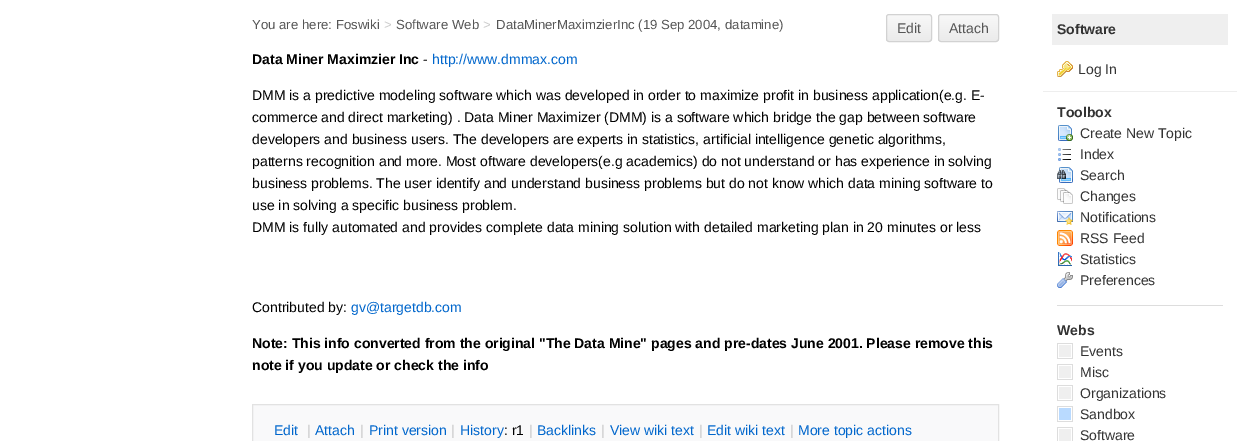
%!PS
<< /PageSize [1251 441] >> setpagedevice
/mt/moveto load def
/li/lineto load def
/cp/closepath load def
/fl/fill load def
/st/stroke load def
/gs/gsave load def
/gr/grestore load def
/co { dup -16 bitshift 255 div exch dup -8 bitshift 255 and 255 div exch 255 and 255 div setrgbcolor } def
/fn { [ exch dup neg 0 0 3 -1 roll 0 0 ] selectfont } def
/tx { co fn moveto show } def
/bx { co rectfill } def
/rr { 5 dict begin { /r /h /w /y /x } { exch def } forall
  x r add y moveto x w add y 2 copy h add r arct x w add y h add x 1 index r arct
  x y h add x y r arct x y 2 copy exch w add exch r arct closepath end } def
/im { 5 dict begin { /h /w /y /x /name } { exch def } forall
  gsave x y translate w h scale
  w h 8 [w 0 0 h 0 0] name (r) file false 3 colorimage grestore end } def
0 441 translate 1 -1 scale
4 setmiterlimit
0 0 1251 441 16#FFFFFF bx
gs
886 14 46 28 3 rr clip newpath
gs 886 15 mt 932 15 li 932 41 li 886 41 li cp clip newpath
<< /ShadingType 2 /ColorSpace /DeviceRGB /Coords [909 15 909 41] /Extend [true true] /Function << /FunctionType 2 /Domain [0 1] /C0 [.973 .973 .973] /C1 [.922 .922 .922] /N 1 >> >> shfill gr
gr
16#D2D2D2 co
886.5 14.5 45 27 2.5 rr st
gs
938 14 61 28 3 rr clip newpath
gs 938 15 mt 999 15 li 999 41 li 938 41 li cp clip newpath
<< /ShadingType 2 /ColorSpace /DeviceRGB /Coords [969 15 969 41] /Extend [true true] /Function << /FunctionType 2 /Domain [0 1] /C0 [.973 .973 .973] /C1 [.922 .922 .922] /N 1 >> >> shfill gr
gr
938.5 14.5 60 27 2.5 rr st
16#F9F9FA co
252.5 404.5 mt 998.5 404.5 li 998.5 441.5 li 252.5 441.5 li cp gs fl gr
16#E2E2E2 co
st
1052 14 176 31 16#EFEFEF bx
1043 91 194 1 16#EEEEEE bx
(media/1.raw) 1057 61 16 16 im
(media/2.raw) 1058 125 15 16 im
(media/3.raw) 1058 148 13 13 im
(media/4.raw) 1057 167 16 16 im
(media/5.raw) 1057 188 16 16 im
(media/6.raw) 1057 211 16 14 im
(media/7.raw) 1057 230 16 16 im
(media/8.raw) 1058 252 14 14 im
(media/9.raw) 1057 272 16 16 im
1057 305 166 1 16#DDDDDD bx
1059 345 12 12 16#EFEFEF bx
(media/10.raw) 1057 343 16 16 im
1059 366 12 12 16#EFEFEF bx
(media/10.raw) 1057 364 16 16 im
1059 387 12 12 16#EFEFEF bx
(media/10.raw) 1057 385 16 16 im
1059 408 12 12 16#B9DAFF bx
(media/11.raw) 1057 406 16 16 im
1059 429 12 12 16#EFEFEF bx
(media/12.raw) 1057 427 16 14 im
(You are here: Foswiki) 252 29 /LiberationSans-Regular 13.2 16#565656 tx
(>) 384 29 /LiberationSans-Regular 13.2 16#CCCCCC tx
(Software Web) 396 29 /LiberationSans-Regular 13.2 16#565656 tx
(>) 483 29 /LiberationSans-Regular 13.2 16#CCCCCC tx
(DataMinerMaximzierInc \(19 Sep 2004, datamine\)) 496 29 /LiberationSans-Regular 13.2 16#565656 tx
(Edit) 897 33 /LiberationSans-Regular 14 16#565656 tx
(Attach) 949 33 /LiberationSans-Regular 14 16#565656 tx
(Data Miner Maximzier Inc) 252 64 /LiberationSans-Bold 14 16#000000 tx
(-) 423 64 /LiberationSans-Regular 14 16#000000 tx
(http://www.dmmax.com) 432 64 /LiberationSans-Regular 14 16#0066CC tx
(DMM is a predictive modeling software which was developed in order to maximize profit in business application\(e.g. E-) 252 100 /LiberationSans-Regular 14 16#000000 tx
(commerce and direct marketing\) . Data Miner Maximizer \(DMM\) is a software which bridge the gap between software) 252 122 /LiberationSans-Regular 14 16#000000 tx
(developers and business users. The developers are experts in statistics, artificial intelligence genetic algorithms,) 252 144 /LiberationSans-Regular 14 16#000000 tx
(patterns recognition and more. Most oftware developers\(e.g academics\) do not understand or has experience in solving) 252 166 /LiberationSans-Regular 14 16#000000 tx
(business problems. The user identify and understand business problems but do not know which data mining software to) 252 188 /LiberationSans-Regular 14 16#000000 tx
(use in solving a specific business problem.) 252 210 /LiberationSans-Regular 14 16#000000 tx
(DMM is fully automated and provides complete data mining solution with detailed marketing plan in 20 minutes or less) 252 232 /LiberationSans-Regular 14 16#000000 tx
(Contributed by:) 252 312 /LiberationSans-Regular 14 16#000000 tx
(gv@targetdb.com) 351 312 /LiberationSans-Regular 14 16#0066CC tx
(Note: This info converted from the original "The Data Mine" pages and pre-dates June 2001. Please remove this) 252 348 /LiberationSans-Bold 14 16#000000 tx
(note if you update or check the info) 252 370 /LiberationSans-Bold 14 16#000000 tx
(Edit) 274 435 /LiberationSans-Regular 14 16#0066CC tx
(|) 307 435 /LiberationSans-Regular 14 16#CCCCCC tx
(Attach) 315 435 /LiberationSans-Regular 14 16#0066CC tx
(|) 360 435 /LiberationSans-Regular 14 16#CCCCCC tx
(Print version) 369 435 /LiberationSans-Regular 14 16#0066CC tx
(|) 451 435 /LiberationSans-Regular 14 16#CCCCCC tx
(History) 460 435 /LiberationSans-Regular 14 16#0066CC tx
(: r1) 504 435 /LiberationSans-Regular 14 16#000000 tx
(|) 529 435 /LiberationSans-Regular 14 16#CCCCCC tx
(Backlinks) 537 435 /LiberationSans-Regular 14 16#0066CC tx
(|) 601 435 /LiberationSans-Regular 14 16#CCCCCC tx
(View wiki text) 610 435 /LiberationSans-Regular 14 16#0066CC tx
(|) 699 435 /LiberationSans-Regular 14 16#CCCCCC tx
(Edit wiki text) 707 435 /LiberationSans-Regular 14 16#0066CC tx
(|) 790 435 /LiberationSans-Regular 14 16#CCCCCC tx
(More topic actions) 798 435 /LiberationSans-Regular 14 16#0066CC tx
(Software) 1057 34 /LiberationSans-Bold 14 16#333333 tx
(Log In) 1078 74 /LiberationSans-Regular 14 16#333333 tx
(Toolbox) 1057 117 /LiberationSans-Bold 14 16#333333 tx
(Create New Topic) 1080 138 /LiberationSans-Regular 14 16#333333 tx
(Index) 1080 159 /LiberationSans-Regular 14 16#333333 tx
(Search) 1080 180 /LiberationSans-Regular 14 16#333333 tx
(Changes) 1080 201 /LiberationSans-Regular 14 16#333333 tx
(Notifications) 1080 222 /LiberationSans-Regular 14 16#333333 tx
(RSS Feed) 1080 243 /LiberationSans-Regular 14 16#333333 tx
(Statistics) 1080 264 /LiberationSans-Regular 14 16#333333 tx
(Preferences) 1080 285 /LiberationSans-Regular 14 16#333333 tx
(Webs) 1057 335 /LiberationSans-Bold 14 16#333333 tx
(Events) 1080 356 /LiberationSans-Regular 14 16#333333 tx
(Misc) 1080 377 /LiberationSans-Regular 14 16#333333 tx
(Organizations) 1080 398 /LiberationSans-Regular 14 16#333333 tx
(Sandbox) 1080 419 /LiberationSans-Regular 14 16#333333 tx
(Software) 1080 440 /LiberationSans-Regular 14 16#333333 tx
showpage
